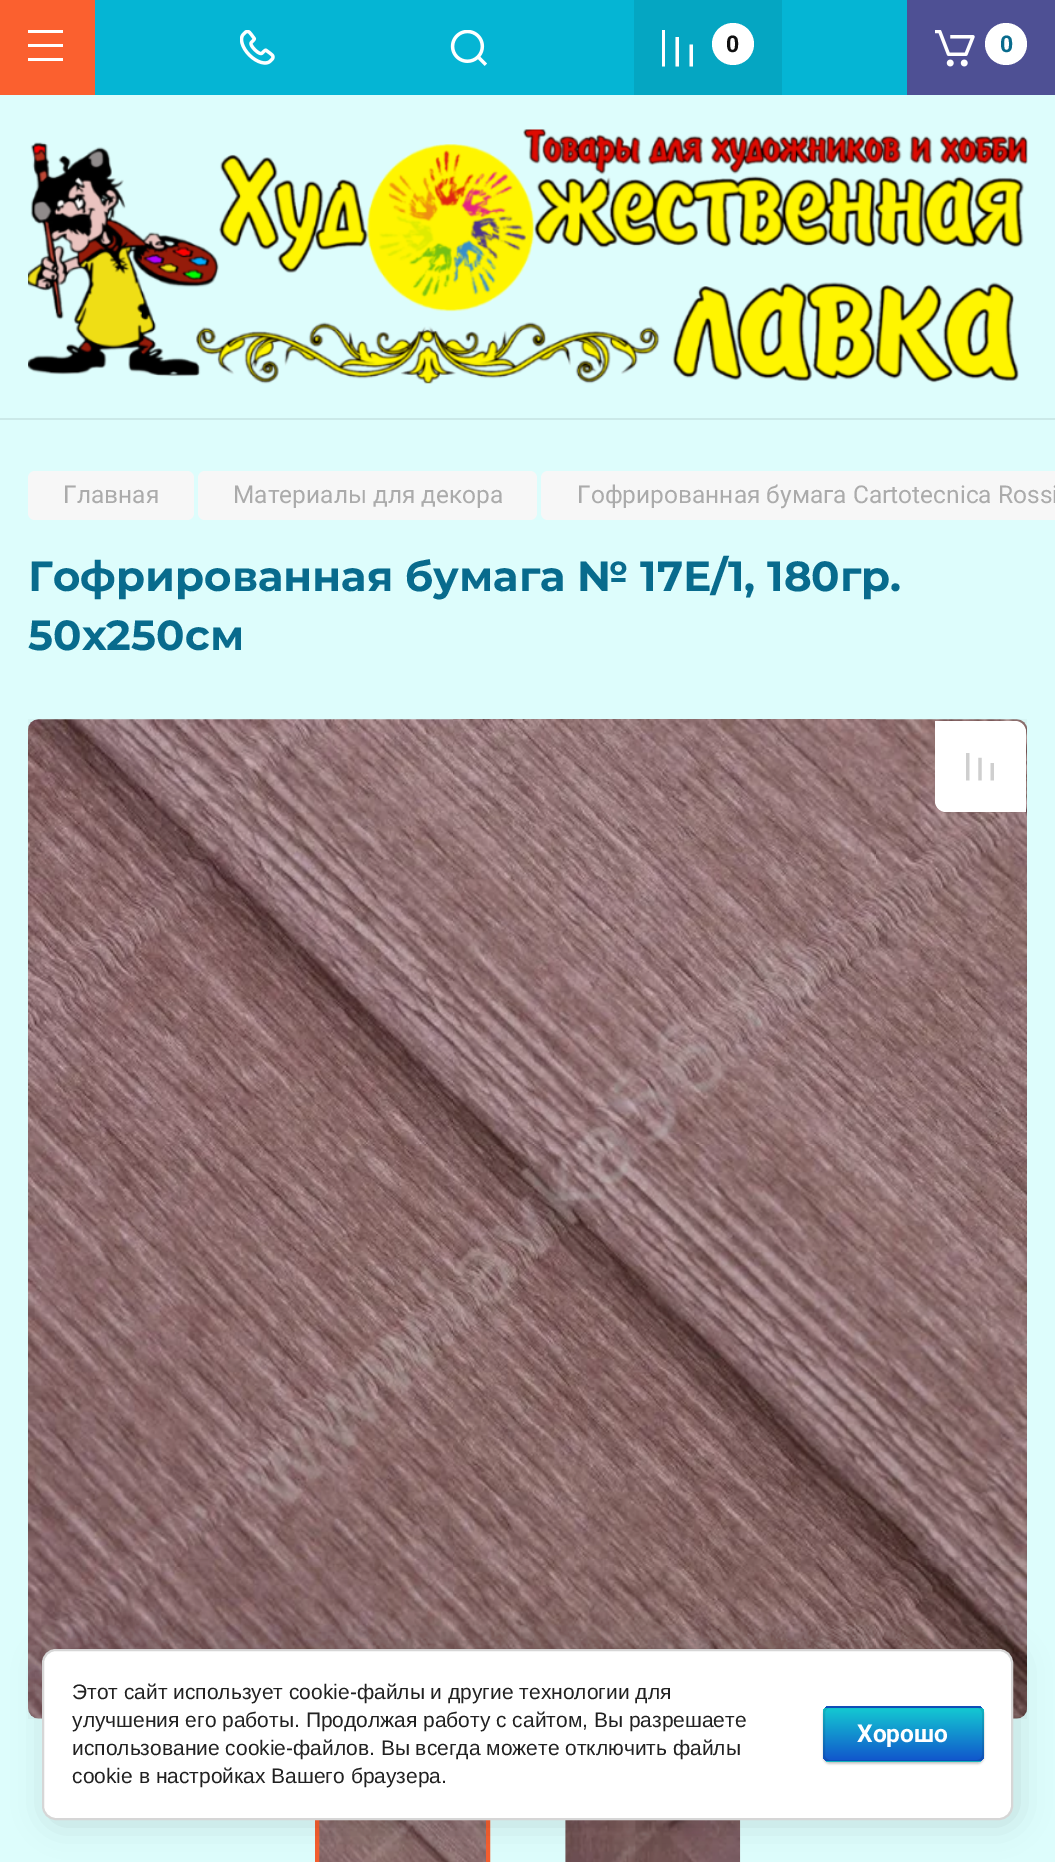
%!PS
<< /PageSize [1055 1862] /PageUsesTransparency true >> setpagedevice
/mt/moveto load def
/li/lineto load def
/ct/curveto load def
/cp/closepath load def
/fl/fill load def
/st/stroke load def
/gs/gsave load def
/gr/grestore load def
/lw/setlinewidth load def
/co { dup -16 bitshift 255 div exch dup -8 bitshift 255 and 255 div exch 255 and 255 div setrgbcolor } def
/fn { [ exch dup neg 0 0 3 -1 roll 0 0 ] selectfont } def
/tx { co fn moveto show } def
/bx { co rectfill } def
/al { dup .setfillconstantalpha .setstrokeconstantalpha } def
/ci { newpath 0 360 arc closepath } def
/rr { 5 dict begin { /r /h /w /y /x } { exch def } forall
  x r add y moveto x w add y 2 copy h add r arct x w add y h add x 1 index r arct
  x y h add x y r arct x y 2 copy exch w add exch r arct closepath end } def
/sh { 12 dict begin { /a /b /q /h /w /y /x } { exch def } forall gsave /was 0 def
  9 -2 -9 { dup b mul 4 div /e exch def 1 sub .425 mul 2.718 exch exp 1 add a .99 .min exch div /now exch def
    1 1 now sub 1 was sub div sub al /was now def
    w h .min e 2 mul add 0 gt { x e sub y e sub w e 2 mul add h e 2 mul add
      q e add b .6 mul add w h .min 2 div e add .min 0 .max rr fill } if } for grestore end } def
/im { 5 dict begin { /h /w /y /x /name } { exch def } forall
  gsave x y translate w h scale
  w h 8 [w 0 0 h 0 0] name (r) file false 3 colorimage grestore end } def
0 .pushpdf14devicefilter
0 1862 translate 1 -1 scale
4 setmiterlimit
0 0 1055 1862 16#DDFDFC bx
95 0 812 95 16#05B5D4 bx
0 0 95 95 16#FB602F bx
16#FFFFFF co
28 30 mt 63 30 li 63 33 li 28 33 li cp 28 44 mt 63 44 li 63 47 li 28 47 li cp 63 58 mt 28 58 li 28 61 li 63 61 li cp fl
(media/1.raw) 240 30 35 35 im
(media/2.raw) 450 30 37 36 im
634 0 148 95 16#05A6C2 bx
gs
662 30 31 37 rectclip
16#FFFFFF co
693 66.5 mt 693 44.5 li 689.5 44.5 li 689.5 66.5 li cp 679 37 mt 679 66.5 li 675.5 66.5 li 675.5 37 li cp 665 29.5 mt 665 66.5 li 661.5 66.5 li 661.5 29.5 li cp fl
gr
16#FFFFFF co
733 44 21 ci fl
907 0 148 95 16#4E5094 bx
(media/3.raw) 935 30 40 37 im
16#FFFFFF co
1006 44 21 ci fl
0 418 1055 2 16#CBE9E8 bx
(media/4.raw) 28 129 1000 255 im
16#F7F7F7 co
28 471 166 49 7 rr fl
198 471 339 49 7 rr fl
548 471 mt 1055 471 li 1055 520 li 548 520 li 544 520 541 517 541 513 ct 541 478 li 541 474 544 471 548 471 ct cp fl
16#DFFFFF co
28 719 999 1000 11 rr fl
(media/5.raw) 28 719 999 1000 im
0.03 al
28 719 999 1000 16#000000 bx
1 al
16#FFFFFF co
935 721 mt 1015 721 li 1021 721 1026 726 1026 732 ct 1026 812 li 946 812 li 940 812 935 807 935 801 ct cp fl
(media/6.raw) 966 753 28 28 im
(media/7.raw) 319 1820 167 42 im
16#FB602F co
4 lw
317 1742 171 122 rectstroke
0.03 al
315 1820 175 42 16#000000 bx
1 al
(media/8.raw) 565 1820 176 42 im
0.03 al
565 1820 175 42 16#000000 bx
1 al
46 1652 971 172 14 16 .14 sh
16#FFFFFF co
43 1650 969 169 13 rr gs fl gr
16#D6D6D6 co
2 lw
st
16#000000 co
823 1708 161 56 7 1 .2 sh
gs
823 1706 161 56 7 rr clip newpath
gs 823 1706 mt 984 1706 li 984 1708 li 823 1708 li cp clip newpath
<< /ShadingType 2 /ColorSpace /DeviceRGB /Coords [903 1656 903 1708] /Extend [true true] /Function << /FunctionType 2 /Domain [0 1] /C0 [.078 .788 .824] /C1 [.067 .333 .8] /N 1 >> >> shfill gr
gs 823 1708 mt 984 1708 li 984 1761 li 823 1761 li cp clip newpath
<< /ShadingType 2 /ColorSpace /DeviceRGB /Coords [903 1708 903 1761] /Extend [true true] /Function << /FunctionType 2 /Domain [0 1] /C0 [.078 .788 .824] /C1 [.067 .333 .8] /N 1 >> >> shfill gr
gs 823 1761 mt 984 1761 li 984 1762 li 823 1762 li cp clip newpath
<< /ShadingType 2 /ColorSpace /DeviceRGB /Coords [903 1761 903 1813] /Extend [true true] /Function << /FunctionType 2 /Domain [0 1] /C0 [.078 .788 .824] /C1 [.067 .333 .8] /N 1 >> >> shfill gr
gr
0.1 al
824 1707 159 54 6 rr st
1 al
(0) 726 52 /Roboto-Bold 23 16#101010 tx
(0) 1000 52 /Roboto-Bold 23 16#086B8D tx
(Главная) 63 503 /Roboto-Regular 24.5 16#ABABAB tx
(Материалы для декора) 233 503 /Roboto-Regular 24.5 16#ABABAB tx
(Гофрированная бумага Cartotecnica Rossi) 577 503 /Roboto-Regular 24.5 16#ABABAB tx
(Гофрированная бумага № 17Е/1, 180гр.) 28 591 /Montserrat-Bold 42 16#086B8D tx
(50х250см) 28 650 /Montserrat-Bold 42 16#086B8D tx
(Этот сайт использует cookie-файлы и другие технологии для) 72 1699 /LiberationSans-Regular 21 16#212121 tx
(улучшения его работы. Продолжая работу с сайтом, Вы разрешаете) 72 1727 /LiberationSans-Regular 21 16#212121 tx
(использование cookie-файлов. Вы всегда можете отключить файлы) 72 1755 /LiberationSans-Regular 21 16#212121 tx
(cookie в настройках Вашего браузера.) 72 1783 /LiberationSans-Regular 21 16#212121 tx
(Хорошо) 857 1742 /Roboto-Bold 24.5 16#FFFFFF tx
.poppdf14devicefilter showpage
